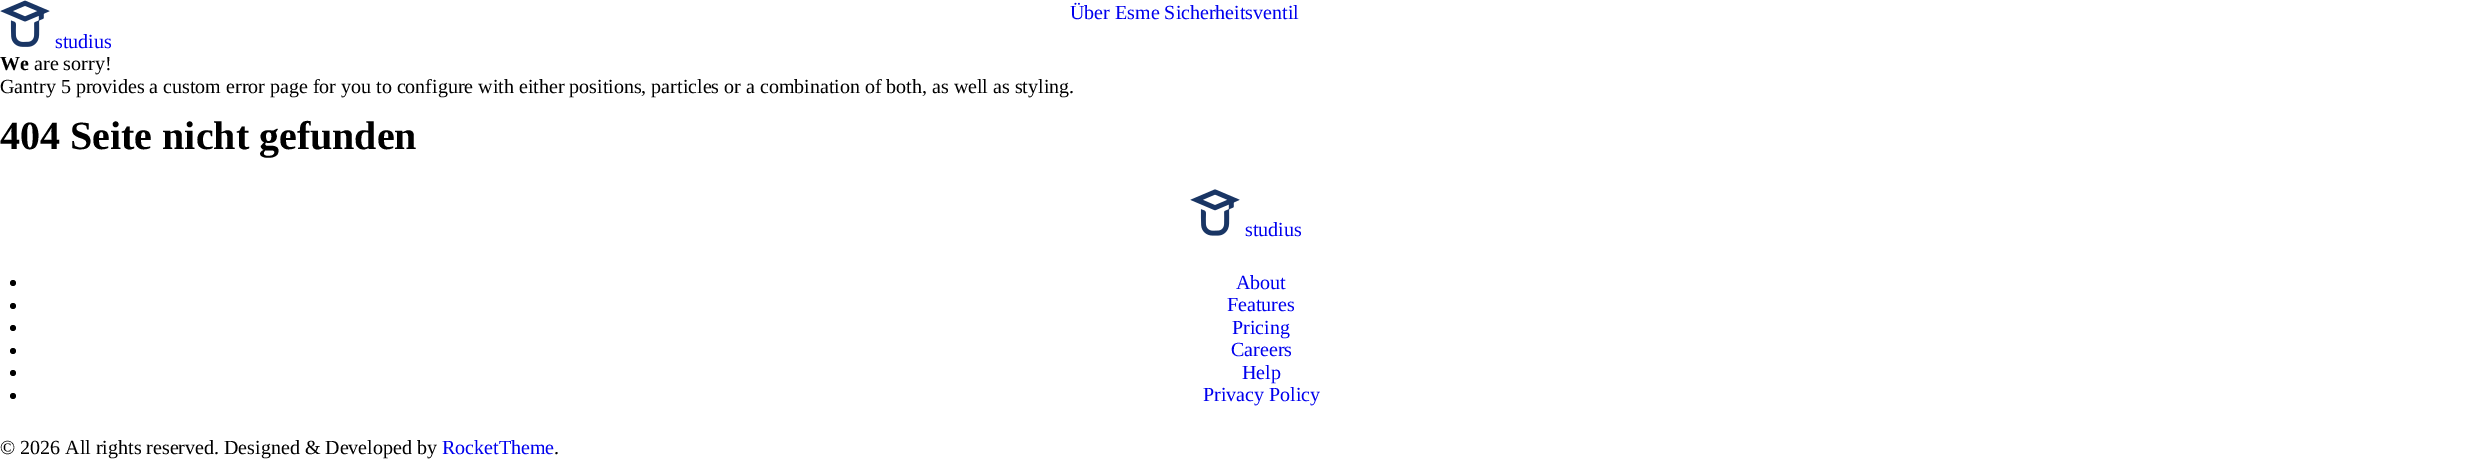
%!PS
<< /PageSize [2492 473] >> setpagedevice
/fl/fill load def
/co { dup -16 bitshift 255 div exch dup -8 bitshift 255 and 255 div exch 255 and 255 div setrgbcolor } def
/fn { [ exch dup neg 0 0 3 -1 roll 0 0 ] selectfont } def
/tx { co fn moveto show } def
/bx { co rectfill } def
/ci { newpath 0 360 arc closepath } def
/im { 5 dict begin { /h /w /y /x /name } { exch def } forall
  gsave x y translate w h scale
  w h 8 [w 0 0 h 0 0] name (r) file false 3 colorimage grestore end } def
0 473 translate 1 -1 scale
4 setmiterlimit
0 0 2492 473 16#FFFFFF bx
(media/1.raw) 0 0 50 47 im
(media/2.raw) 1190 189 50 47 im
16#000000 co
13 283 3 ci fl
13 306 3 ci fl
13 328 3 ci fl
13 351 3 ci fl
13 373 3 ci fl
13 396 3 ci fl
(Über Esme Sicherheitsventil) 1070 19 /LiberationSerif-Regular 20 16#0000EE tx
(studius) 55 48 /LiberationSerif-Regular 20 16#0000EE tx
(We) 0 70 /LiberationSerif-Bold 20 16#000000 tx
(are sorry!) 34 70 /LiberationSerif-Regular 20 16#000000 tx
(Gantry 5 provides a custom error page for you to configure with either positions, particles or a combination of both, as well as styling.) 0 93 /LiberationSerif-Regular 20 16#000000 tx
(404 Seite nicht gefunden) 0 149 /LiberationSerif-Bold 40 16#000000 tx
(studius) 1245 236 /LiberationSerif-Regular 20 16#0000EE tx
(About) 1236 289 /LiberationSerif-Regular 20 16#0000EE tx
(Features) 1227 311 /LiberationSerif-Regular 20 16#0000EE tx
(Pricing) 1232 334 /LiberationSerif-Regular 20 16#0000EE tx
(Careers) 1231 356 /LiberationSerif-Regular 20 16#0000EE tx
(Help) 1242 379 /LiberationSerif-Regular 20 16#0000EE tx
(Privacy Policy) 1203 401 /LiberationSerif-Regular 20 16#0000EE tx
(© 2026 All rights reserved. Designed & Developed by) 0 454 /LiberationSerif-Regular 20 16#000000 tx
(RocketTheme) 442 454 /LiberationSerif-Regular 20 16#0000EE tx
(.) 554 454 /LiberationSerif-Regular 20 16#000000 tx
showpage
